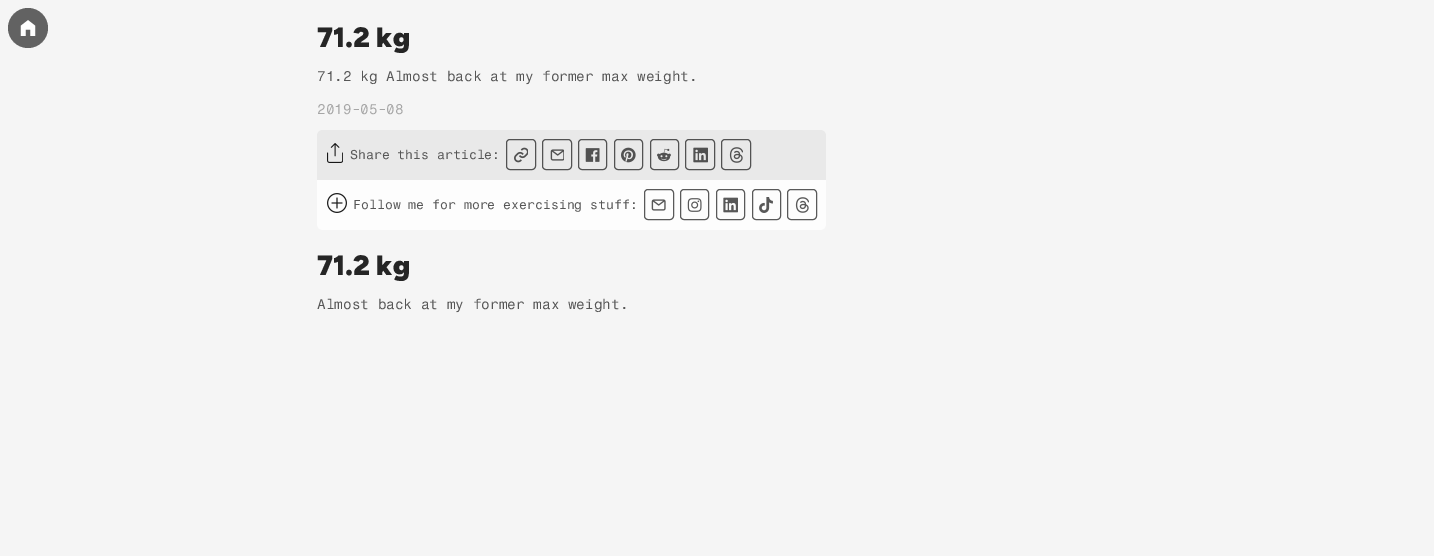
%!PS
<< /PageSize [1434 556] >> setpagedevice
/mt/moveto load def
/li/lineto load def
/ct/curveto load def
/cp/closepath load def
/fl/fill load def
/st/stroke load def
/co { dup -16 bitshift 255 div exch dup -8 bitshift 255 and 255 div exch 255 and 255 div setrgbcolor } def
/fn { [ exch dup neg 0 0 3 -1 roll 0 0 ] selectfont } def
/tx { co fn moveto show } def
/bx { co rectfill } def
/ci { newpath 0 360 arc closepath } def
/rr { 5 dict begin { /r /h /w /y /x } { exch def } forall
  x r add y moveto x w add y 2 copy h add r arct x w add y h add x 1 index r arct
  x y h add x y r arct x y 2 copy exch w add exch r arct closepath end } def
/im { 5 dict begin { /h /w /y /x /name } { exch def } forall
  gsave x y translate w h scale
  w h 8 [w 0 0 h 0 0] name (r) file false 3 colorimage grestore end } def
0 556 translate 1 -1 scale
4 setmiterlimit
0 0 1434 556 16#F5F5F5 bx
16#626262 co
28 28 20 ci fl
(media/1.raw) 20 20 16 16 im
16#E9E9E9 co
323 130 mt 820 130 li 823.5 130 826 132.5 826 136 ct 826 180 li 317 180 li 317 136 li 317 132.5 319.5 130 323 130 ct cp fl
(media/2.raw) 327 143 16 20 im
16#525252 co
506.5 139.5 29 30 3.5 rr st
(media/3.raw) 514 147 14 16 im
542.5 139.5 29 30 3.5 rr st
(media/4.raw) 550 149 14 12 im
578.5 139.5 28 30 3.5 rr st
(media/5.raw) 585 148 15 14 im
614.5 139.5 28 30 3.5 rr st
(media/6.raw) 621 147 15 16 im
650.5 139.5 28 30 3.5 rr st
(media/7.raw) 657 148 14 14 im
685.5 139.5 29 30 3.5 rr st
(media/8.raw) 693 147 15 16 im
721.5 139.5 29 30 3.5 rr st
(media/9.raw) 729 147 14 16 im
16#FDFDFD co
317 180 mt 826 180 li 826 224 li 826 227.5 823.5 230 820 230 ct 323 230 li 319.5 230 317 227.5 317 224 ct cp fl
(media/10.raw) 327 193 20 20 im
16#595959 co
644.5 189.5 29 30 3.5 rr st
(media/11.raw) 651 199 15 12 im
680.5 189.5 28 30 3.5 rr st
(media/12.raw) 687 198 15 14 im
716.5 189.5 28 30 3.5 rr st
(media/13.raw) 723 197 15 16 im
752.5 189.5 28 30 3.5 rr st
(media/14.raw) 759 197 14 16 im
787.5 189.5 29 30 3.5 rr st
(media/15.raw) 795 197 14 16 im
(71.2 kg) 317 47 /Figtree-Black 28 16#252525 tx
(71.2 kg Almost back at my former max weight.) 317 81 /FragmentMono-Regular 14 16#565656 tx
(2019-05-08) 317 114 /FragmentMono-Regular 14 16#A6A6A6 tx
(Share this article:) 350 159 /FragmentMono-Regular 12.8 16#565656 tx
(Follow me for more exercising stuff:) 353 209 /FragmentMono-Regular 12.8 16#565656 tx
(71.2 kg) 317 275 /Figtree-Black 28 16#252525 tx
(Almost back at my former max weight.) 317 309 /FragmentMono-Regular 14 16#565656 tx
showpage
